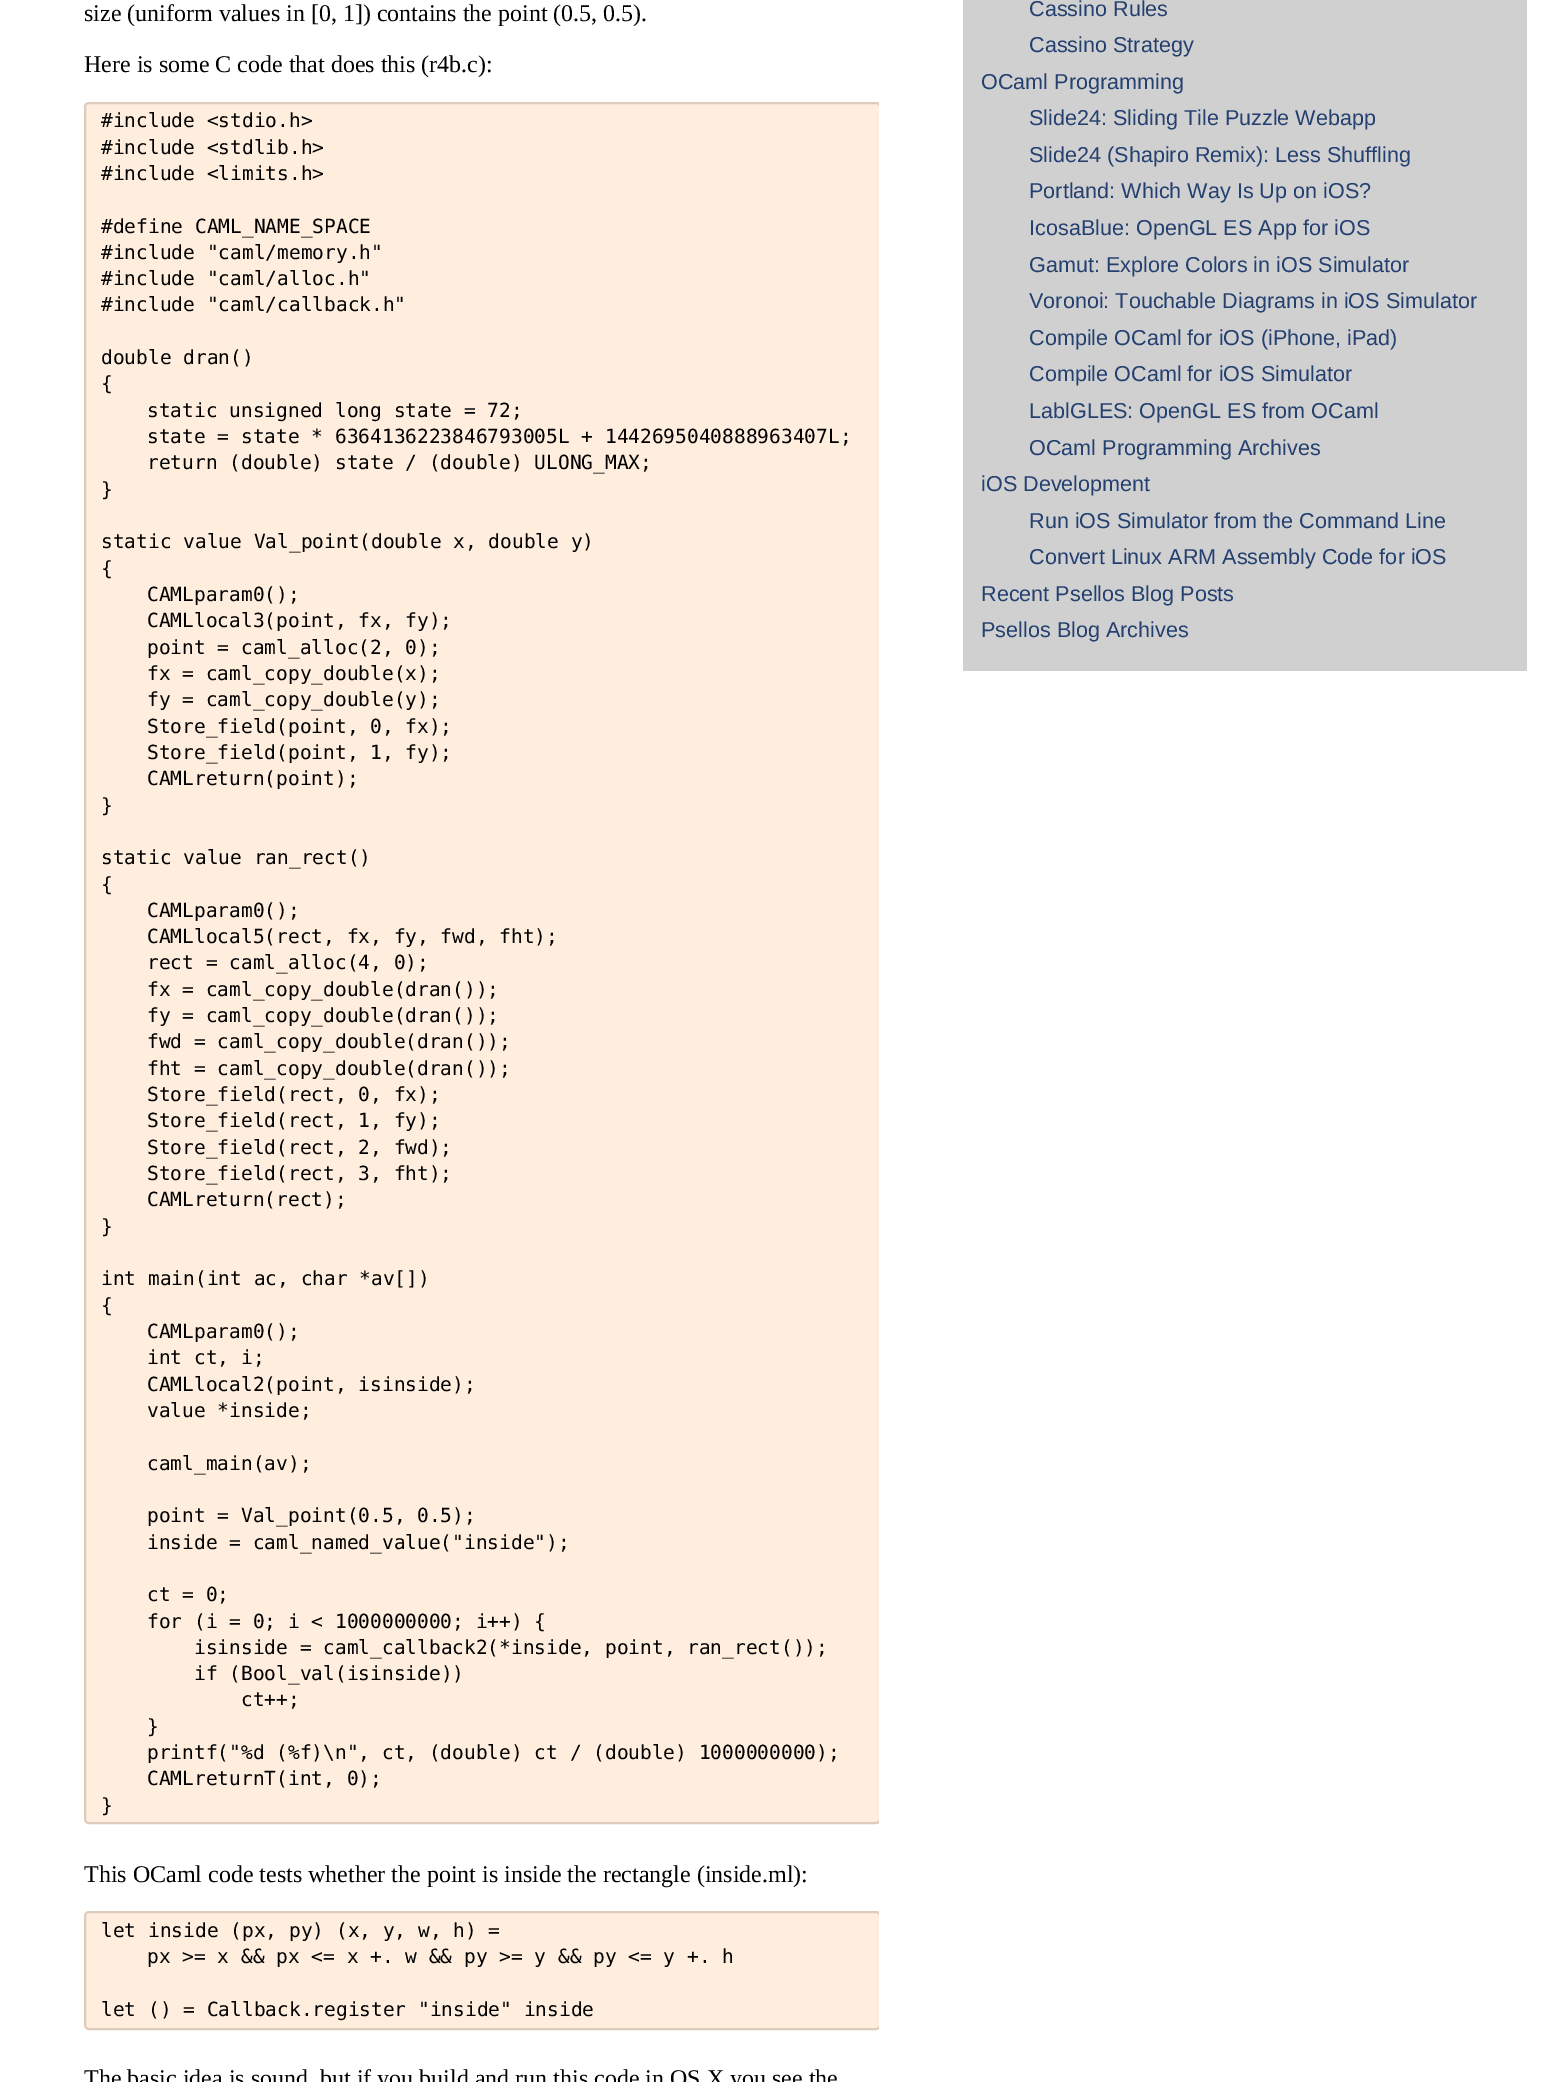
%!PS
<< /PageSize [1551 2082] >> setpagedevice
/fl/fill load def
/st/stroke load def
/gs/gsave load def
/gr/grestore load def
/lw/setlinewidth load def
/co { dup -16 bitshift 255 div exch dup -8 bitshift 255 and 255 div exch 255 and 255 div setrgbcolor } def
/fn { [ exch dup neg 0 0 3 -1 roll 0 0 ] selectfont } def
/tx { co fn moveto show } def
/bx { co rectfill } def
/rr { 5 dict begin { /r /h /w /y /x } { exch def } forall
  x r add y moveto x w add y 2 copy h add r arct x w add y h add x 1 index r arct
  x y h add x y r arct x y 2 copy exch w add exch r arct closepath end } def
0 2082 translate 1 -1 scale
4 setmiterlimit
0 0 1551 2082 16#FFFFFF bx
gs
84 0 795 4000 rectclip
16#FFEEDD co
85 103 795 1720 4 rr gs fl gr
16#DDCCBB co
2 lw
st
16#FFEEDD co
85 1912 795 117 4 rr gs fl gr
16#DDCCBB co
st
gr
963 0 564 671 16#D0D0D0 bx
(size \(uniform values in [0, 1]\) contains the point \(0.5, 0.5\).) 84 21 /LiberationSerif-Regular 24 16#000000 tx
(Here is some C code that does this \(r4b.c\):) 84 72 /LiberationSerif-Regular 24 16#000000 tx
(#include <stdio.h>) 101 127 /DejaVuSansMono-Regular 19.5 16#000000 tx
(#include <stdlib.h>) 101 154 /DejaVuSansMono-Regular 19.5 16#000000 tx
(#include <limits.h>) 101 180 /DejaVuSansMono-Regular 19.5 16#000000 tx
(#define CAML_NAME_SPACE) 101 233 /DejaVuSansMono-Regular 19.5 16#000000 tx
(#include "caml/memory.h") 101 259 /DejaVuSansMono-Regular 19.5 16#000000 tx
(#include "caml/alloc.h") 101 285 /DejaVuSansMono-Regular 19.5 16#000000 tx
(#include "caml/callback.h") 101 311 /DejaVuSansMono-Regular 19.5 16#000000 tx
(double dran\(\)) 101 364 /DejaVuSansMono-Regular 19.5 16#000000 tx
({) 101 390 /DejaVuSansMono-Regular 19.5 16#000000 tx
(static unsigned long state = 72;) 147 417 /DejaVuSansMono-Regular 19.5 16#000000 tx
(state = state * 6364136223846793005L + 1442695040888963407L;) 147 443 /DejaVuSansMono-Regular 19.5 16#000000 tx
(return \(double\) state / \(double\) ULONG_MAX;) 147 469 /DejaVuSansMono-Regular 19.5 16#000000 tx
(}) 101 496 /DejaVuSansMono-Regular 19.5 16#000000 tx
(static value Val_point\(double x, double y\)) 101 548 /DejaVuSansMono-Regular 19.5 16#000000 tx
({) 101 575 /DejaVuSansMono-Regular 19.5 16#000000 tx
(CAMLparam0\(\);) 147 601 /DejaVuSansMono-Regular 19.5 16#000000 tx
(CAMLlocal3\(point, fx, fy\);) 147 627 /DejaVuSansMono-Regular 19.5 16#000000 tx
(point = caml_alloc\(2, 0\);) 147 654 /DejaVuSansMono-Regular 19.5 16#000000 tx
(fx = caml_copy_double\(x\);) 147 680 /DejaVuSansMono-Regular 19.5 16#000000 tx
(fy = caml_copy_double\(y\);) 147 706 /DejaVuSansMono-Regular 19.5 16#000000 tx
(Store_field\(point, 0, fx\);) 147 733 /DejaVuSansMono-Regular 19.5 16#000000 tx
(Store_field\(point, 1, fy\);) 147 759 /DejaVuSansMono-Regular 19.5 16#000000 tx
(CAMLreturn\(point\);) 147 785 /DejaVuSansMono-Regular 19.5 16#000000 tx
(}) 101 812 /DejaVuSansMono-Regular 19.5 16#000000 tx
(static value ran_rect\(\)) 101 864 /DejaVuSansMono-Regular 19.5 16#000000 tx
({) 101 891 /DejaVuSansMono-Regular 19.5 16#000000 tx
(CAMLparam0\(\);) 147 917 /DejaVuSansMono-Regular 19.5 16#000000 tx
(CAMLlocal5\(rect, fx, fy, fwd, fht\);) 147 943 /DejaVuSansMono-Regular 19.5 16#000000 tx
(rect = caml_alloc\(4, 0\);) 147 969 /DejaVuSansMono-Regular 19.5 16#000000 tx
(fx = caml_copy_double\(dran\(\)\);) 147 996 /DejaVuSansMono-Regular 19.5 16#000000 tx
(fy = caml_copy_double\(dran\(\)\);) 147 1022 /DejaVuSansMono-Regular 19.5 16#000000 tx
(fwd = caml_copy_double\(dran\(\)\);) 147 1048 /DejaVuSansMono-Regular 19.5 16#000000 tx
(fht = caml_copy_double\(dran\(\)\);) 147 1075 /DejaVuSansMono-Regular 19.5 16#000000 tx
(Store_field\(rect, 0, fx\);) 147 1101 /DejaVuSansMono-Regular 19.5 16#000000 tx
(Store_field\(rect, 1, fy\);) 147 1127 /DejaVuSansMono-Regular 19.5 16#000000 tx
(Store_field\(rect, 2, fwd\);) 147 1154 /DejaVuSansMono-Regular 19.5 16#000000 tx
(Store_field\(rect, 3, fht\);) 147 1180 /DejaVuSansMono-Regular 19.5 16#000000 tx
(CAMLreturn\(rect\);) 147 1206 /DejaVuSansMono-Regular 19.5 16#000000 tx
(}) 101 1233 /DejaVuSansMono-Regular 19.5 16#000000 tx
(int main\(int ac, char *av[]\)) 101 1285 /DejaVuSansMono-Regular 19.5 16#000000 tx
({) 101 1312 /DejaVuSansMono-Regular 19.5 16#000000 tx
(CAMLparam0\(\);) 147 1338 /DejaVuSansMono-Regular 19.5 16#000000 tx
(int ct, i;) 147 1364 /DejaVuSansMono-Regular 19.5 16#000000 tx
(CAMLlocal2\(point, isinside\);) 147 1391 /DejaVuSansMono-Regular 19.5 16#000000 tx
(value *inside;) 147 1417 /DejaVuSansMono-Regular 19.5 16#000000 tx
(caml_main\(av\);) 147 1470 /DejaVuSansMono-Regular 19.5 16#000000 tx
(point = Val_point\(0.5, 0.5\);) 147 1522 /DejaVuSansMono-Regular 19.5 16#000000 tx
(inside = caml_named_value\("inside"\);) 147 1549 /DejaVuSansMono-Regular 19.5 16#000000 tx
(ct = 0;) 147 1601 /DejaVuSansMono-Regular 19.5 16#000000 tx
(for \(i = 0; i < 1000000000; i++\) {) 147 1628 /DejaVuSansMono-Regular 19.5 16#000000 tx
(isinside = caml_callback2\(*inside, point, ran_rect\(\)\);) 194 1654 /DejaVuSansMono-Regular 19.5 16#000000 tx
(if \(Bool_val\(isinside\)\)) 194 1680 /DejaVuSansMono-Regular 19.5 16#000000 tx
(ct++;) 241 1706 /DejaVuSansMono-Regular 19.5 16#000000 tx
(}) 147 1733 /DejaVuSansMono-Regular 19.5 16#000000 tx
(printf\("%d \(%f\)\\n", ct, \(double\) ct / \(double\) 1000000000\);) 147 1759 /DejaVuSansMono-Regular 19.5 16#000000 tx
(CAMLreturnT\(int, 0\);) 147 1785 /DejaVuSansMono-Regular 19.5 16#000000 tx
(}) 101 1812 /DejaVuSansMono-Regular 19.5 16#000000 tx
(This OCaml code tests whether the point is inside the rectangle \(inside.ml\):) 84 1882 /LiberationSerif-Regular 24 16#000000 tx
(let inside \(px, py\) \(x, y, w, h\) =) 101 1937 /DejaVuSansMono-Regular 19.5 16#000000 tx
(px >= x && px <= x +. w && py >= y && py <= y +. h) 147 1963 /DejaVuSansMono-Regular 19.5 16#000000 tx
(let \(\) = Callback.register "inside" inside) 101 2016 /DejaVuSansMono-Regular 19.5 16#000000 tx
(The basic idea is sound, but if you build and run this code in OS X you see the) 84 2086 /LiberationSerif-Regular 24 16#000000 tx
(Cassino Rules) 1029 16 /LiberationSans-Regular 21.6 16#244070 tx
(Cassino Strategy) 1029 52 /LiberationSans-Regular 21.6 16#244070 tx
(OCaml Programming) 981 89 /LiberationSans-Regular 21.6 16#244070 tx
(Slide24: Sliding Tile Puzzle Webapp) 1029 125 /LiberationSans-Regular 21.6 16#244070 tx
(Slide24 \(Shapiro Remix\): Less Shuffling) 1029 162 /LiberationSans-Regular 21.6 16#244070 tx
(Portland: Which Way Is Up on iOS?) 1029 198 /LiberationSans-Regular 21.6 16#244070 tx
(IcosaBlue: OpenGL ES App for iOS) 1029 235 /LiberationSans-Regular 21.6 16#244070 tx
(Gamut: Explore Colors in iOS Simulator) 1029 272 /LiberationSans-Regular 21.6 16#244070 tx
(Voronoi: Touchable Diagrams in iOS Simulator) 1029 308 /LiberationSans-Regular 21.6 16#244070 tx
(Compile OCaml for iOS \(iPhone, iPad\)) 1029 345 /LiberationSans-Regular 21.6 16#244070 tx
(Compile OCaml for iOS Simulator) 1029 381 /LiberationSans-Regular 21.6 16#244070 tx
(LablGLES: OpenGL ES from OCaml) 1029 418 /LiberationSans-Regular 21.6 16#244070 tx
(OCaml Programming Archives) 1029 455 /LiberationSans-Regular 21.6 16#244070 tx
(iOS Development) 981 491 /LiberationSans-Regular 21.6 16#244070 tx
(Run iOS Simulator from the Command Line) 1029 528 /LiberationSans-Regular 21.6 16#244070 tx
(Convert Linux ARM Assembly Code for iOS) 1029 564 /LiberationSans-Regular 21.6 16#244070 tx
(Recent Psellos Blog Posts) 981 601 /LiberationSans-Regular 21.6 16#244070 tx
(Psellos Blog Archives) 981 637 /LiberationSans-Regular 21.6 16#244070 tx
showpage
